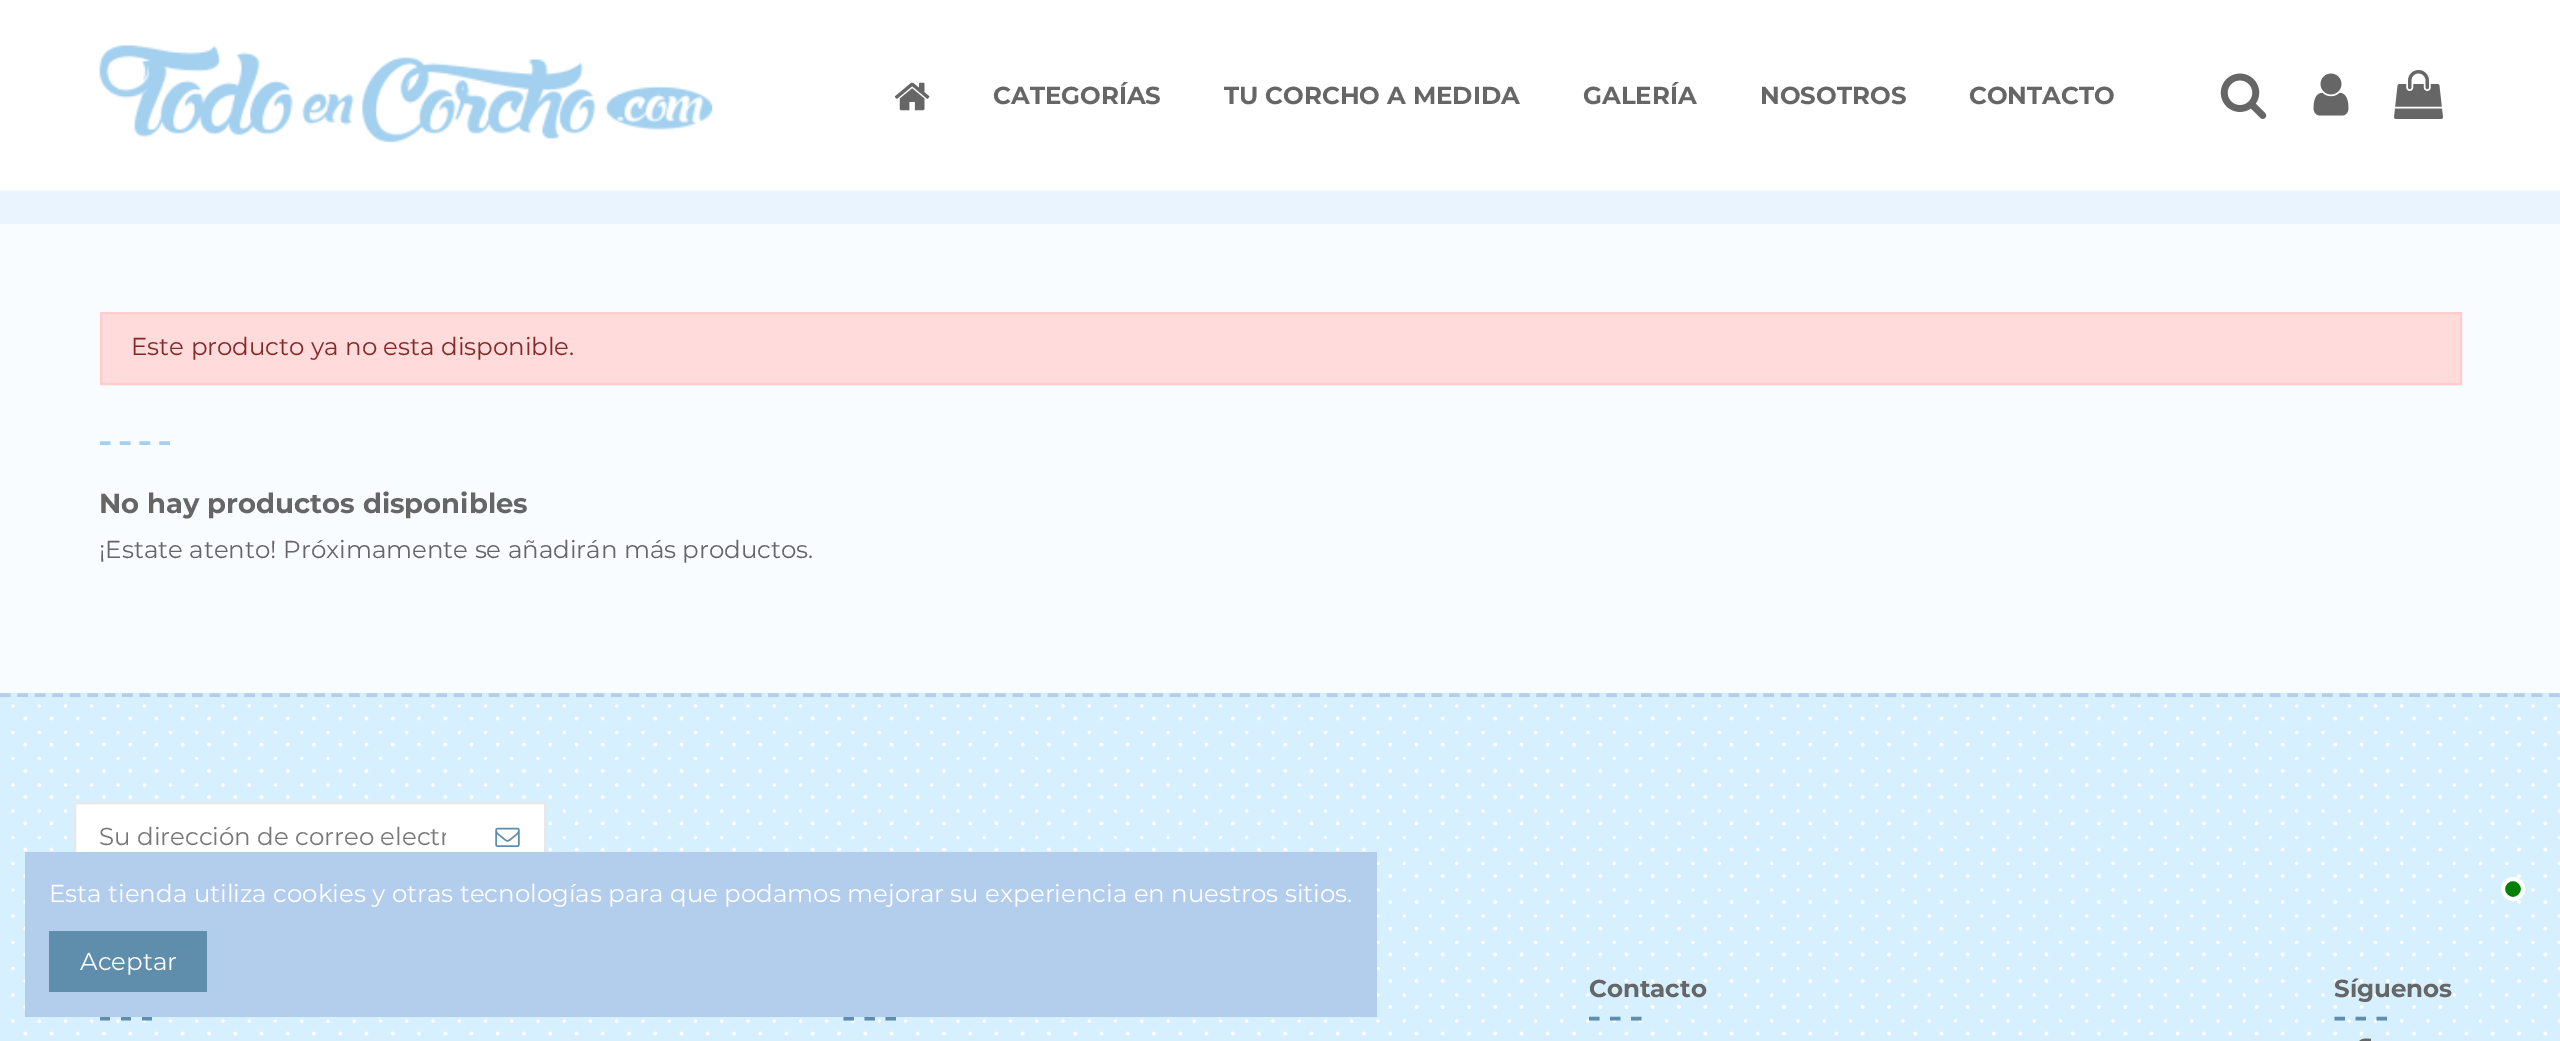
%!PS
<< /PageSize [2560 1041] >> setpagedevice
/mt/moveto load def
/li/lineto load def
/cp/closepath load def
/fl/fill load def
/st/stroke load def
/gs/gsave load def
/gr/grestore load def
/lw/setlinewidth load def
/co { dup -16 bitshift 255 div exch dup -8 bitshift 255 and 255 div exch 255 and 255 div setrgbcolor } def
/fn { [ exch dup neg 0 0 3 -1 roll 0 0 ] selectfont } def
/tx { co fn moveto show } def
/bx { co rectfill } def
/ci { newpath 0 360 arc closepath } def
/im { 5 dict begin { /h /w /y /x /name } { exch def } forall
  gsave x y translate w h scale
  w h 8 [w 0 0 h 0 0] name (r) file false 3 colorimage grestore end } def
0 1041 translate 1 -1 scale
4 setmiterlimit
0 0 2560 1041 16#F9FCFE bx
0 0 2560 191 16#FFFFFF bx
(media/1.raw) 99 45 614 98 im
(media/2.raw) 894 82 36 29 im
(media/3.raw) 2220 73 47 46 im
(media/4.raw) 2313 73 36 43 im
(media/5.raw) 2394 70 49 49 im
0 191 2560 33 16#EAF4FF bx
16#FFDBDB co
101 313 mt 2461 313 li 2461 384 li 101 384 li cp gs fl gr
16#FFCDCD co
2 lw
st
16#A2D0EE co
3.5 lw
[10.5 9.33] 0 setdash
100 443 mt 170 443 li st
0 693 2560 348 16#D7F0FF bx
16#FFFFFF co
3.7 lw
1 setlinecap
[0 26.25] 0 setdash
25.4 718.4 mt 2545.7 718.4 li st
25.4 744.6 mt 2545.7 744.6 li st
25.4 770.9 mt 2545.7 770.9 li st
25.4 797.1 mt 2545.7 797.1 li st
25.4 823.4 mt 2545.7 823.4 li st
25.4 849.6 mt 2545.7 849.6 li st
25.4 875.9 mt 2545.7 875.9 li st
25.4 902.1 mt 2545.7 902.1 li st
25.4 928.4 mt 2545.7 928.4 li st
25.4 954.6 mt 2545.7 954.6 li st
25.4 980.9 mt 2545.7 980.9 li st
25.4 1007.1 mt 2545.7 1007.1 li st
25.4 1033.4 mt 2545.7 1033.4 li st
3.3 lw
13.1 706.1 mt 2559.7 706.1 li st
13.1 732.4 mt 2559.7 732.4 li st
13.1 758.6 mt 2559.7 758.6 li st
13.1 784.9 mt 2559.7 784.9 li st
13.1 811.1 mt 2559.7 811.1 li st
13.1 837.4 mt 2559.7 837.4 li st
13.1 863.6 mt 2559.7 863.6 li st
13.1 889.9 mt 2559.7 889.9 li st
13.1 916.1 mt 2559.7 916.1 li st
13.1 942.4 mt 2559.7 942.4 li st
13.1 968.6 mt 2559.7 968.6 li st
13.1 994.9 mt 2559.7 994.9 li st
13.1 1021.1 mt 2559.7 1021.1 li st
16#B3CDEC co
3.5 lw
0 setlinecap
[10.5 6.96] 0 setdash
0 695 mt 2560 695 li st
76 804 468 48 16#FFFFFF bx
16#E8E8E8 co
2 lw
[] 0 setdash
75 803 470 68 rectstroke
(media/6.raw) 495 827 25 20 im
16#008000 co
2513 889 10 ci gs fl gr
16#FFFFFF co
4 lw
st
16#5F8EAD co
3.5 lw
1589 1018.5 mt 1599.5 1018.5 li 1610 1018.5 mt 1620.5 1018.5 li 1631 1018.5 mt 1641.5 1018.5 li st
2334.5 1018.5 mt 2345 1018.5 li 2355.5 1018.5 mt 2366 1018.5 li 2376.5 1018.5 mt 2387 1018.5 li st
(media/7.raw) 2359 1038 12 3 im
100 1018.5 mt 110 1018.5 li 121 1018.5 mt 131 1018.5 li 142 1018.5 mt 152 1018.5 li st
843.5 1018.5 mt 854 1018.5 li 864.5 1018.5 mt 875 1018.5 li 885.5 1018.5 mt 896 1018.5 li st
25 852 1352 165 16#B3CDEC bx
49 931 158 61 16#5F8EAD bx
(CATEGORÍAS) 993 104 /Montserrat-Bold 24.5 16#666666 tx
(TU CORCHO A MEDIDA) 1224 104 /Montserrat-Bold 24.5 16#666666 tx
(GALERÍA) 1583 104 /Montserrat-Bold 24.5 16#666666 tx
(NOSOTROS) 1760 104 /Montserrat-Bold 24.5 16#666666 tx
(CONTACTO) 1969 104 /Montserrat-Bold 24.5 16#666666 tx
(Este producto ya no esta disponible.) 131 355 /Montserrat-Regular 24.5 16#852828 tx
(No hay productos disponibles) 99 513 /Montserrat-Bold 27.5 16#666666 tx
(¡Estate atento! Próximamente se añadirán más productos.) 99 558 /Montserrat-Regular 24.5 16#666666 tx
gs
100 821 346 31 rectclip
(Su dirección de correo electr) 99 845 /Montserrat-Regular 24.5 16#777777 tx
gr
(Contacto) 1589 997 /Montserrat-Bold 24.5 16#666666 tx
(Síguenos) 2334 997 /Montserrat-Bold 24.5 16#666666 tx
(Esta tienda utiliza cookies y otras tecnologías para que podamos mejorar su experiencia en nuestros sitios.) 49 902 /Montserrat-Regular 24.5 16#FFFFFF tx
(Aceptar) 80 970 /Montserrat-Regular 24.5 16#FFFFFF tx
showpage
